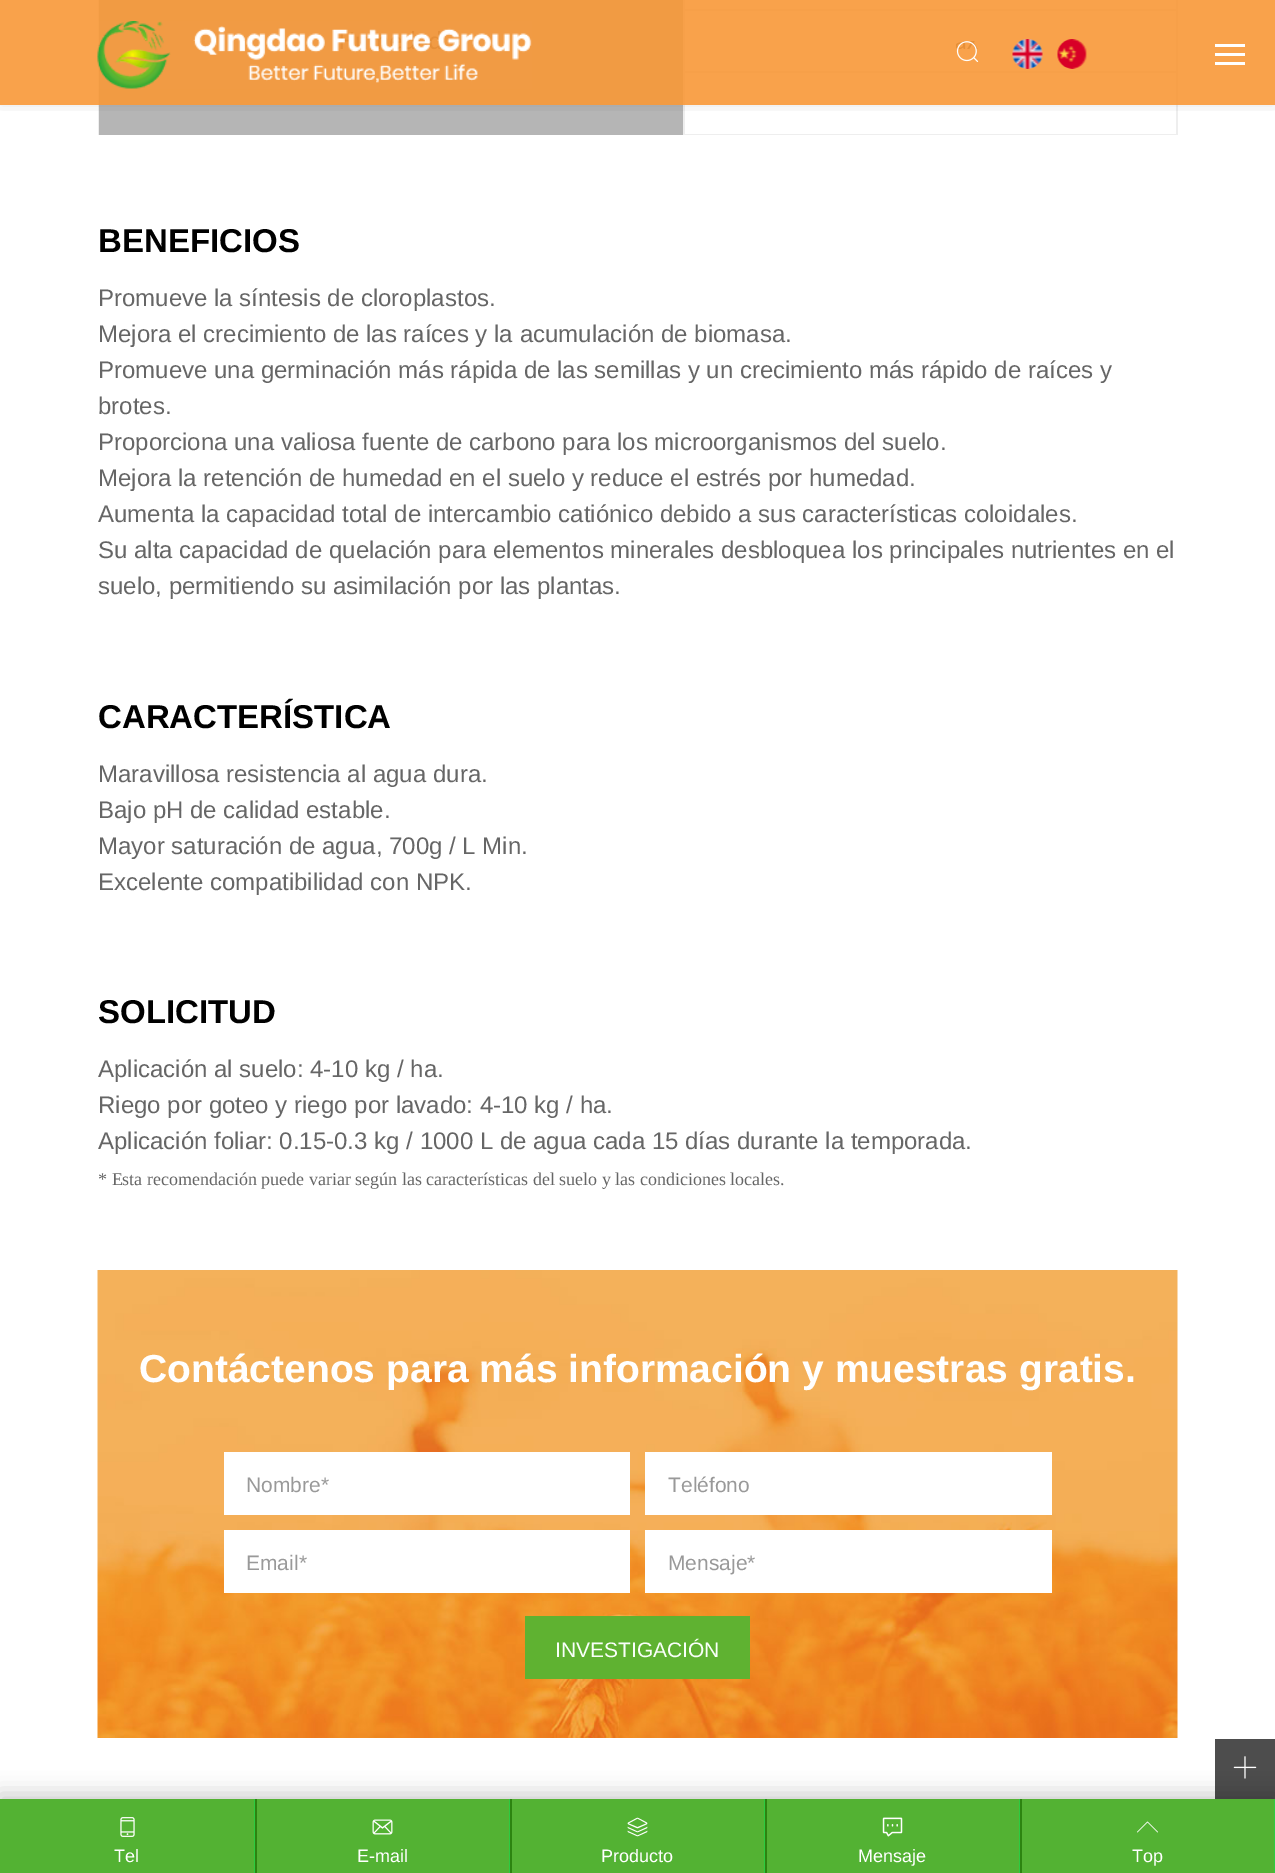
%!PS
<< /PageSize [1275 1873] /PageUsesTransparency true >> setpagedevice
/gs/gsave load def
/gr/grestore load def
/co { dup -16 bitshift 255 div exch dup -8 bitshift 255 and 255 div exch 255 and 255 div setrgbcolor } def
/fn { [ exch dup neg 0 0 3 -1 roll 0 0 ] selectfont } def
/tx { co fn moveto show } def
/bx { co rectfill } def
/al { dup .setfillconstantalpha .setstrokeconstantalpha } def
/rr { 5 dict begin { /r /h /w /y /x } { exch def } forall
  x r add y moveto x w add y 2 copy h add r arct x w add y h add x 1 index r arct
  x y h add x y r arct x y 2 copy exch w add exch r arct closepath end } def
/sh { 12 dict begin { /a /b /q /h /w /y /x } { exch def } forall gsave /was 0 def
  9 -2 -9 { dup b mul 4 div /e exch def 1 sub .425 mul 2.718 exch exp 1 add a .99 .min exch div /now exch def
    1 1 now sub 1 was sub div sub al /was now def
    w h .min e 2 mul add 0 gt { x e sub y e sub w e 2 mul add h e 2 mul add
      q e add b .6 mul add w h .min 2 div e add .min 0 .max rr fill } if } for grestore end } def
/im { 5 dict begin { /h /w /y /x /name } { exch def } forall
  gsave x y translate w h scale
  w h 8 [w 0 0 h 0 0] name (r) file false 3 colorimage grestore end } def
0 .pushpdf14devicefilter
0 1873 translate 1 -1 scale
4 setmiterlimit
0 0 1275 1873 16#FFFFFF bx
98 0 1 135 16#EEEEEE bx
683 71 495 2 16#EEEEEE bx
1176 71 2 64 16#EEEEEE bx
683 134 495 1 16#EEEEEE bx
683 71 2 64 16#EEEEEE bx
99 0 584 135 16#B5B5B5 bx
683 9 495 2 16#EEEEEE bx
1176 0 2 72 16#EEEEEE bx
683 0 2 72 16#EEEEEE bx
gs
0 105 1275 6 rectclip
16#000000 co
0 0 1275 105 0 7.5 .1 sh
gr
0.9 al
0 0 1275 105 16#F89837 bx
1 al
(media/1.raw) 97 21 435 68 im
(media/2.raw) 956 41 23 21 im
(media/3.raw) 1012 39 31 30 im
(media/4.raw) 1057 39 30 30 im
1215 44 30 3 16#FFFFFF bx
1215 53 30 3 16#FFFFFF bx
1215 62 30 3 16#FFFFFF bx
(media/5.raw) 97 1270 1081 468 im
224 1452 406 63 16#FFFFFF bx
645 1452 407 63 16#FFFFFF bx
224 1530 406 63 16#FFFFFF bx
645 1530 407 63 16#FFFFFF bx
525 1616 225 63 16#5FB231 bx
1215 1739 60 60 16#4D4D4D bx
(media/6.raw) 1233 1756 24 23 im
16#000000 co
-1 1794 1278 78 0 10.5 .2 sh
0 1799 1274 74 16#53B233 bx
254 1799 1 74 16#2CCC40 bx
(media/7.raw) 120 1817 15 20 im
509 1799 1 74 16#2CCC40 bx
255 1799 2 74 16#2C8410 bx
(media/8.raw) 372 1819 21 16 im
764 1799 1 74 16#2CCC40 bx
510 1799 2 74 16#2C8410 bx
(media/9.raw) 627 1817 21 20 im
1019 1799 1 74 16#2CCC40 bx
765 1799 2 74 16#2C8410 bx
(media/10.raw) 882 1817 21 20 im
1274 1799 1 74 16#2CCC40 bx
1020 1799 2 74 16#2C8410 bx
(media/11.raw) 1137 1821 21 12 im
(BENEFICIOS) 98 252 /LiberationSans-Bold 33 16#000000 tx
(Promueve la síntesis de cloroplastos.) 98 306 /LiberationSans-Regular 24 16#666666 tx
(Mejora el crecimiento de las raíces y la acumulación de biomasa.) 98 342 /LiberationSans-Regular 24 16#666666 tx
(Promueve una germinación más rápida de las semillas y un crecimiento más rápido de raíces y) 98 378 /LiberationSans-Regular 24 16#666666 tx
(brotes.) 98 414 /LiberationSans-Regular 24 16#666666 tx
(Proporciona una valiosa fuente de carbono para los microorganismos del suelo.) 98 450 /LiberationSans-Regular 24 16#666666 tx
(Mejora la retención de humedad en el suelo y reduce el estrés por humedad.) 98 486 /LiberationSans-Regular 24 16#666666 tx
(Aumenta la capacidad total de intercambio catiónico debido a sus características coloidales.) 98 522 /LiberationSans-Regular 24 16#666666 tx
(Su alta capacidad de quelación para elementos minerales desbloquea los principales nutrientes en el) 98 558 /LiberationSans-Regular 24 16#666666 tx
(suelo, permitiendo su asimilación por las plantas.) 98 594 /LiberationSans-Regular 24 16#666666 tx
(CARACTERÍSTICA) 98 728 /LiberationSans-Bold 33 16#000000 tx
(Maravillosa resistencia al agua dura.) 98 782 /LiberationSans-Regular 24 16#666666 tx
(Bajo pH de calidad estable.) 98 818 /LiberationSans-Regular 24 16#666666 tx
(Mayor saturación de agua, 700g / L Min.) 98 854 /LiberationSans-Regular 24 16#666666 tx
(Excelente compatibilidad con NPK.) 98 890 /LiberationSans-Regular 24 16#666666 tx
(SOLICITUD) 98 1023 /LiberationSans-Bold 33 16#000000 tx
(Aplicación al suelo: 4-10 kg / ha.) 98 1077 /LiberationSans-Regular 24 16#666666 tx
(Riego por goteo y riego por lavado: 4-10 kg / ha.) 98 1113 /LiberationSans-Regular 24 16#666666 tx
(Aplicación foliar: 0.15-0.3 kg / 1000 L de agua cada 15 días durante la temporada.) 98 1149 /LiberationSans-Regular 24 16#666666 tx
(* Esta recomendación puede variar según las características del suelo y las condiciones locales.) 98 1185 /LiberationSerif-Regular 18 16#666666 tx
(Contáctenos para más información y muestras gratis.) 139 1382 /LiberationSans-Bold 39 16#FFFFFF tx
(Nombre*) 246 1492 /LiberationSans-Regular 21 16#999999 tx
(Teléfono) 668 1492 /LiberationSans-Regular 21 16#999999 tx
(Email*) 246 1570 /LiberationSans-Regular 21 16#999999 tx
(Mensaje*) 668 1570 /LiberationSans-Regular 21 16#999999 tx
(INVESTIGACIÓN) 555 1657 /LiberationSans-Regular 21 16#F9FFF9 tx
(Tel) 114 1862 /LiberationSans-Regular 18 16#FFFFFF tx
(E-mail) 357 1862 /LiberationSans-Regular 18 16#FFFFFF tx
(Producto) 601 1862 /LiberationSans-Regular 18 16#FFFFFF tx
(Mensaje) 858 1862 /LiberationSans-Regular 18 16#FFFFFF tx
(Top) 1132 1862 /LiberationSans-Regular 18 16#FFFFFF tx
.poppdf14devicefilter showpage
